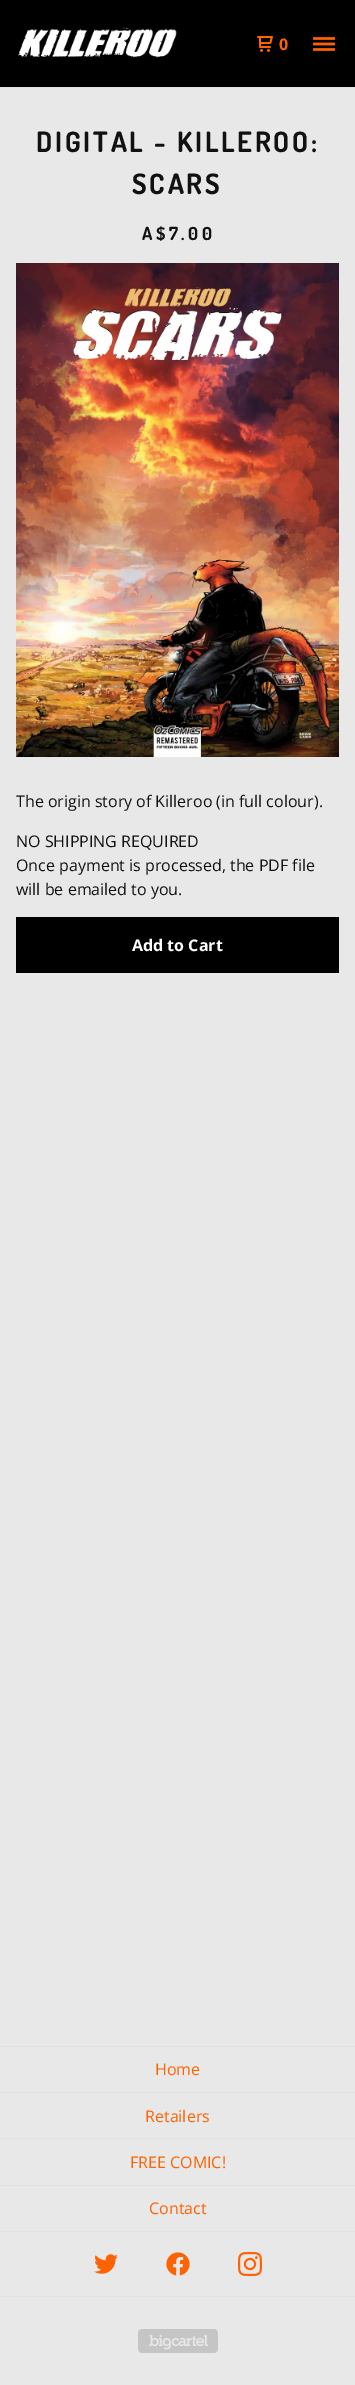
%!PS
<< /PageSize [355 2385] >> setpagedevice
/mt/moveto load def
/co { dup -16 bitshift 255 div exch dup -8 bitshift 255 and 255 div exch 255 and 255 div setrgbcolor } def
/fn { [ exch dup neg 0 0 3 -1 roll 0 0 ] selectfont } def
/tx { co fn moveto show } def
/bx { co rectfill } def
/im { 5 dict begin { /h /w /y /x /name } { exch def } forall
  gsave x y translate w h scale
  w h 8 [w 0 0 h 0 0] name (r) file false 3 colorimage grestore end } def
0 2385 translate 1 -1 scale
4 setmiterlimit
0 0 355 2385 16#E8E8E8 bx
0 0 355 87 16#000000 bx
0 87 355 1 16#E2E2E2 bx
(media/1.raw) 18 27 159 31 im
(media/2.raw) 257 36 16 16 im
(media/3.raw) 313 37 22 14 im
(media/4.raw) 16 263 323 494 im
16 917 323 56 16#000000 bx
0 2046 355 1 16#E2E2E2 bx
0 2231 355 1 16#E2E2E2 bx
0 2092 355 1 16#E2E2E2 bx
0 2138 355 1 16#E2E2E2 bx
0 2185 355 1 16#E2E2E2 bx
0 2296 355 1 16#E2E2E2 bx
(media/5.raw) 94 2254 24 20 im
(media/6.raw) 166 2252 24 24 im
(media/7.raw) 238 2252 24 24 im
(media/8.raw) 138 2329 80 24 im
(0) 279 50 /OpenSans-Bold 16 16#FF6200 tx
/Dosis-Bold 28 fn
16#111111 co
36 152 mt 2.75 0 (DIGITAL - KILLEROO:) ashow
132 194 mt 2.75 0 (SCARS) ashow
/Dosis-Bold 18 fn
142 240 mt 3.5 0 (A$7.00) ashow
(The origin story of Killeroo \(in full colour\).) 16 807 /OpenSans-Regular 16 16#111111 tx
(NO SHIPPING REQUIRED) 16 847 /OpenSans-Regular 16 16#111111 tx
(Once payment is processed, the PDF file) 16 871 /OpenSans-Regular 16 16#111111 tx
(will be emailed to you.) 16 895 /OpenSans-Regular 16 16#111111 tx
(Add to Cart) 132 951 /OpenSans-Bold 16 16#FFFFFF tx
(Home) 155 2075 /OpenSans-Regular 16 16#FF6200 tx
(Retailers) 145 2122 /OpenSans-Regular 16 16#FF6200 tx
(FREE COMIC!) 130 2168 /OpenSans-Regular 16 16#FF6200 tx
(Contact) 149 2214 /OpenSans-Regular 16 16#FF6200 tx
showpage
